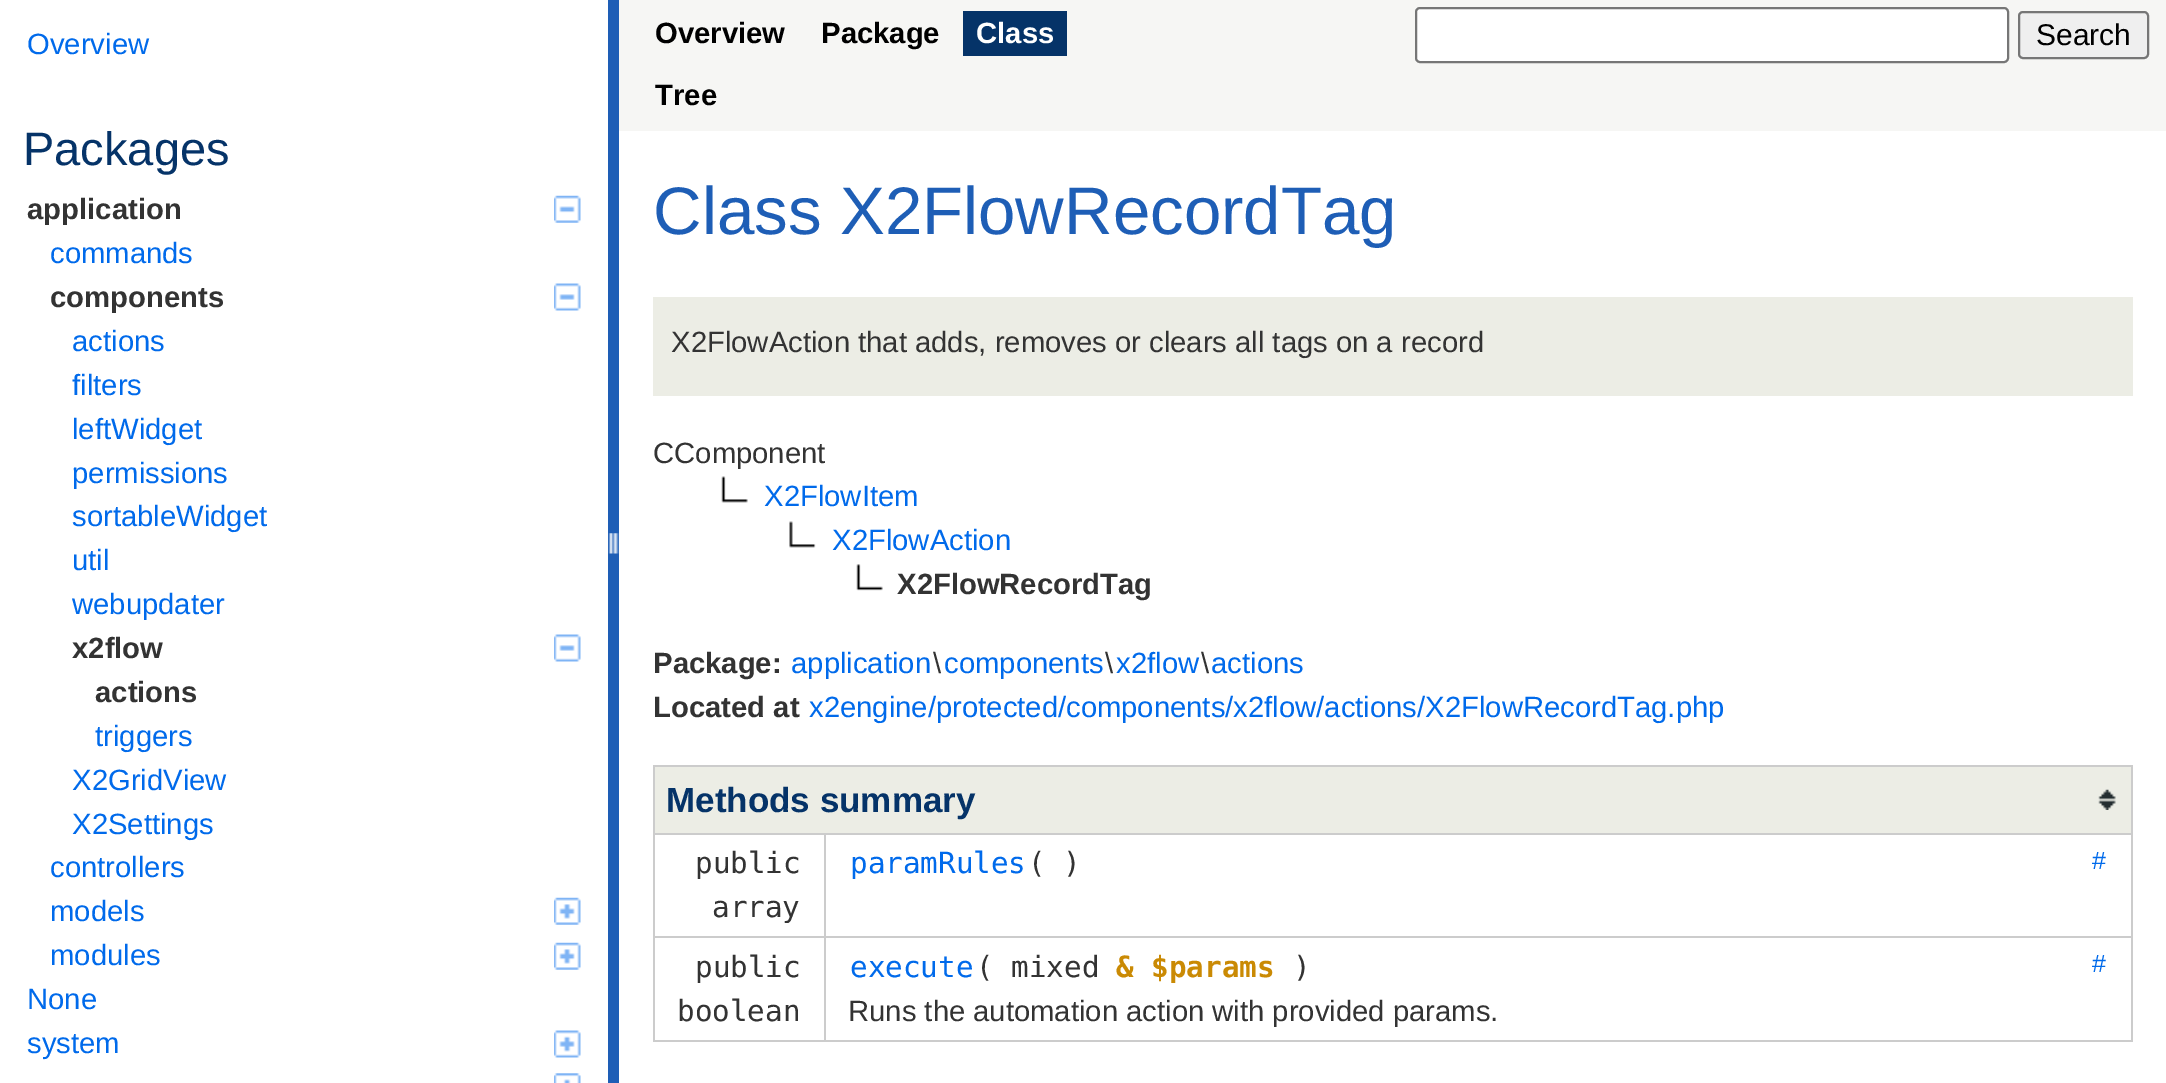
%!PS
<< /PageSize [2166 1083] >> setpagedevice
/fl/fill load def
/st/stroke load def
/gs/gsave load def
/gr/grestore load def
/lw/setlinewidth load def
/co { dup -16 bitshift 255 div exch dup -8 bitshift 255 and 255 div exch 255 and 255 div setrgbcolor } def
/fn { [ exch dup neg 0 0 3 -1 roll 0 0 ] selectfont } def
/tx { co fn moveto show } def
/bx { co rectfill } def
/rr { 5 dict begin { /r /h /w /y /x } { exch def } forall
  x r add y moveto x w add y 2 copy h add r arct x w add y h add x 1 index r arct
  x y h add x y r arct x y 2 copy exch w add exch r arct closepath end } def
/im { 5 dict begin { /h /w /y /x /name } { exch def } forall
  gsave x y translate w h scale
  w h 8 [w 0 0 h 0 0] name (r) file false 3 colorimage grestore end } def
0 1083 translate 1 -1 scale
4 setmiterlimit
0 0 2166 1083 16#FFFFFF bx
(media/1.raw) 554 195 27 28 im
(media/2.raw) 554 283 27 28 im
(media/2.raw) 554 634 27 28 im
(media/3.raw) 554 897 27 28 im
(media/3.raw) 554 942 27 28 im
(media/4.raw) 554 1030 27 28 im
(media/5.raw) 554 1073 27 10 im
608 0 11 1083 16#1E5EB6 bx
(media/6.raw) 608 533 11 21 im
619 0 1547 131 16#F6F6F4 bx
963 11 104 45 16#053368 bx
16#FFFFFF co
1416 8 592 54 4 rr gs fl gr
16#767676 co
2 lw
st
16#EFEFEF co
2019 12 129 46 4 rr gs fl gr
16#767676 co
st
653 297 1480 99 16#ECEDE5 bx
(media/7.raw) 721 476 27 27 im
(media/8.raw) 789 521 27 27 im
(media/9.raw) 856 564 27 27 im
653 765 1480 2 16#CCCCCC bx
2131 765 2 277 16#CCCCCC bx
653 1040 1480 2 16#CCCCCC bx
653 765 2 277 16#CCCCCC bx
655 767 1476 66 16#ECEDE5 bx
(media/10.raw) 2098 789 18 21 im
824 833 1309 2 16#CCCCCC bx
824 936 1309 2 16#CCCCCC bx
824 936 2 106 16#CCCCCC bx
653 936 173 2 16#CCCCCC bx
824 833 2 105 16#CCCCCC bx
653 833 173 2 16#CCCCCC bx
(Overview) 27 54 /LiberationSans-Regular 29.25 16#006AEB tx
(Packages) 23 165 /LiberationSans-Regular 47 16#053368 tx
(application) 27 219 /LiberationSans-Bold 29.25 16#333333 tx
(commands) 50 263 /LiberationSans-Regular 29.25 16#006AEB tx
(components) 50 307 /LiberationSans-Bold 29.25 16#333333 tx
(actions) 72 351 /LiberationSans-Regular 29.25 16#006AEB tx
(filters) 72 395 /LiberationSans-Regular 29.25 16#006AEB tx
(leftWidget) 72 439 /LiberationSans-Regular 29.25 16#006AEB tx
(permissions) 72 483 /LiberationSans-Regular 29.25 16#006AEB tx
(sortableWidget) 72 526 /LiberationSans-Regular 29.25 16#006AEB tx
(util) 72 570 /LiberationSans-Regular 29.25 16#006AEB tx
(webupdater) 72 614 /LiberationSans-Regular 29.25 16#006AEB tx
(x2flow) 72 658 /LiberationSans-Bold 29.25 16#333333 tx
(actions) 95 702 /LiberationSans-Bold 29.25 16#333333 tx
(triggers) 95 746 /LiberationSans-Regular 29.25 16#006AEB tx
(X2GridView) 72 790 /LiberationSans-Regular 29.25 16#006AEB tx
(X2Settings) 72 834 /LiberationSans-Regular 29.25 16#006AEB tx
(controllers) 50 877 /LiberationSans-Regular 29.25 16#006AEB tx
(models) 50 921 /LiberationSans-Regular 29.25 16#006AEB tx
(modules) 50 965 /LiberationSans-Regular 29.25 16#006AEB tx
(None) 27 1009 /LiberationSans-Regular 29.25 16#006AEB tx
(system) 27 1053 /LiberationSans-Regular 29.25 16#006AEB tx
(Overview) 655 43 /LiberationSans-Bold 29.25 16#000000 tx
(Package) 821 43 /LiberationSans-Bold 29.25 16#000000 tx
(Class) 976 43 /LiberationSans-Bold 29.25 16#FFFFFF tx
(Tree) 655 105 /LiberationSans-Bold 29.25 16#000000 tx
(Search) 2036 45 /LiberationSans-Regular 30 16#000000 tx
(Class X2FlowRecordTag) 653 234 /LiberationSans-Regular 67.25 16#1E5EB6 tx
(X2FlowAction that adds, removes or clears all tags on a record) 671 352 /LiberationSans-Regular 29.25 16#333333 tx
(CComponent) 653 463 /LiberationSans-Regular 29.25 16#333333 tx
(X2FlowItem) 764 506 /LiberationSans-Regular 29.25 16#006AEB tx
(X2FlowAction) 832 550 /LiberationSans-Regular 29.25 16#006AEB tx
(X2FlowRecordTag) 897 594 /LiberationSans-Bold 29.25 16#333333 tx
(Package:) 653 673 /LiberationSans-Bold 29.25 16#333333 tx
(application) 791 673 /LiberationSans-Regular 29.25 16#006AEB tx
(\\) 933 673 /LiberationSans-Regular 29.25 16#333333 tx
(components) 944 673 /LiberationSans-Regular 29.25 16#006AEB tx
(\\) 1105 673 /LiberationSans-Regular 29.25 16#333333 tx
(x2flow) 1116 673 /LiberationSans-Regular 29.25 16#006AEB tx
(\\) 1201 673 /LiberationSans-Regular 29.25 16#333333 tx
(actions) 1211 673 /LiberationSans-Regular 29.25 16#006AEB tx
(Located at) 653 717 /LiberationSans-Bold 29.25 16#333333 tx
(x2engine/protected/components/x2flow/actions/X2FlowRecordTag.php) 809 717 /LiberationSans-Regular 29.25 16#006AEB tx
(Methods summary) 666 812 /LiberationSans-Bold 35 16#053368 tx
(public) 695 873 /DejaVuSansMono-Regular 29.25 16#333333 tx
(array) 712 917 /DejaVuSansMono-Regular 29.25 16#333333 tx
(paramRules) 850 873 /DejaVuSansMono-Regular 29.25 16#006AEB tx
(\( \)) 1028 873 /DejaVuSansMono-Regular 29.25 16#333333 tx
(#) 2092 869 /LiberationSans-Regular 25 16#006AEB tx
(public) 695 977 /DejaVuSansMono-Regular 29.25 16#333333 tx
(boolean) 677 1021 /DejaVuSansMono-Regular 29.25 16#333333 tx
(execute) 850 977 /DejaVuSansMono-Regular 29.25 16#006AEB tx
(\( mixed) 976 977 /DejaVuSansMono-Regular 29.25 16#333333 tx
(& $params) 1116 977 /DejaVuSansMono-Bold 29.25 16#CA8A04 tx
(\)) 1293 977 /DejaVuSansMono-Regular 29.25 16#333333 tx
(#) 2092 972 /LiberationSans-Regular 25 16#006AEB tx
(Runs the automation action with provided params.) 848 1021 /LiberationSans-Regular 29.25 16#333333 tx
showpage
